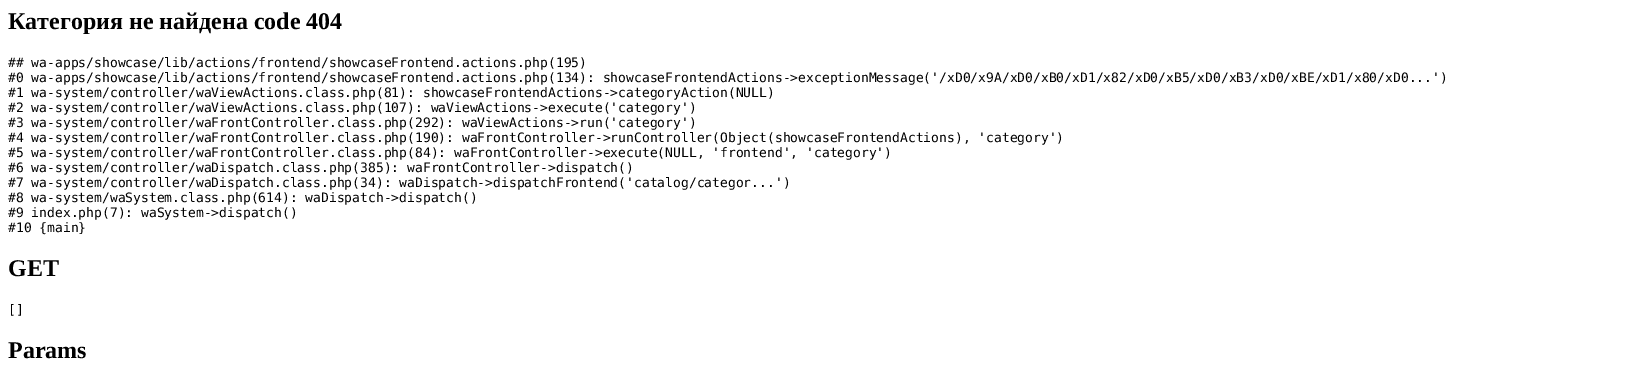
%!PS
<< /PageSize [1652 383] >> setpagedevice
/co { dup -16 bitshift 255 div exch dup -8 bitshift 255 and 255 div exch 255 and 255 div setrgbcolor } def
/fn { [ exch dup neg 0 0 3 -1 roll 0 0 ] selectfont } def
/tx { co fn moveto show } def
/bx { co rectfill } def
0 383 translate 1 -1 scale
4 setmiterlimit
0 0 1652 383 16#FFFFFF bx
(Категория не найдена code 404) 8 29 /LiberationSerif-Bold 24 16#000000 tx
(## wa-apps/showcase/lib/actions/frontend/showcaseFrontend.actions.php\(195\)) 8 67 /DejaVuSansMono-Regular 13 16#000000 tx
(#0 wa-apps/showcase/lib/actions/frontend/showcaseFrontend.actions.php\(134\): showcaseFrontendActions->exceptionMessage\('/xD0/x9A/xD0/xB0/xD1/x82/xD0/xB5/xD0/xB3/xD0/xBE/xD1/x80/xD0...'\)) 8 82 /DejaVuSansMono-Regular 13 16#000000 tx
(#1 wa-system/controller/waViewActions.class.php\(81\): showcaseFrontendActions->categoryAction\(NULL\)) 8 97 /DejaVuSansMono-Regular 13 16#000000 tx
(#2 wa-system/controller/waViewActions.class.php\(107\): waViewActions->execute\('category'\)) 8 112 /DejaVuSansMono-Regular 13 16#000000 tx
(#3 wa-system/controller/waFrontController.class.php\(292\): waViewActions->run\('category'\)) 8 127 /DejaVuSansMono-Regular 13 16#000000 tx
(#4 wa-system/controller/waFrontController.class.php\(190\): waFrontController->runController\(Object\(showcaseFrontendActions\), 'category'\)) 8 142 /DejaVuSansMono-Regular 13 16#000000 tx
(#5 wa-system/controller/waFrontController.class.php\(84\): waFrontController->execute\(NULL, 'frontend', 'category'\)) 8 157 /DejaVuSansMono-Regular 13 16#000000 tx
(#6 wa-system/controller/waDispatch.class.php\(385\): waFrontController->dispatch\(\)) 8 172 /DejaVuSansMono-Regular 13 16#000000 tx
(#7 wa-system/controller/waDispatch.class.php\(34\): waDispatch->dispatchFrontend\('catalog/categor...'\)) 8 187 /DejaVuSansMono-Regular 13 16#000000 tx
(#8 wa-system/waSystem.class.php\(614\): waDispatch->dispatch\(\)) 8 202 /DejaVuSansMono-Regular 13 16#000000 tx
(#9 index.php\(7\): waSystem->dispatch\(\)) 8 217 /DejaVuSansMono-Regular 13 16#000000 tx
(#10 {main}) 8 232 /DejaVuSansMono-Regular 13 16#000000 tx
(GET) 8 276 /LiberationSerif-Bold 24 16#000000 tx
([]) 8 314 /DejaVuSansMono-Regular 13 16#000000 tx
(Params) 8 358 /LiberationSerif-Bold 24 16#000000 tx
showpage
